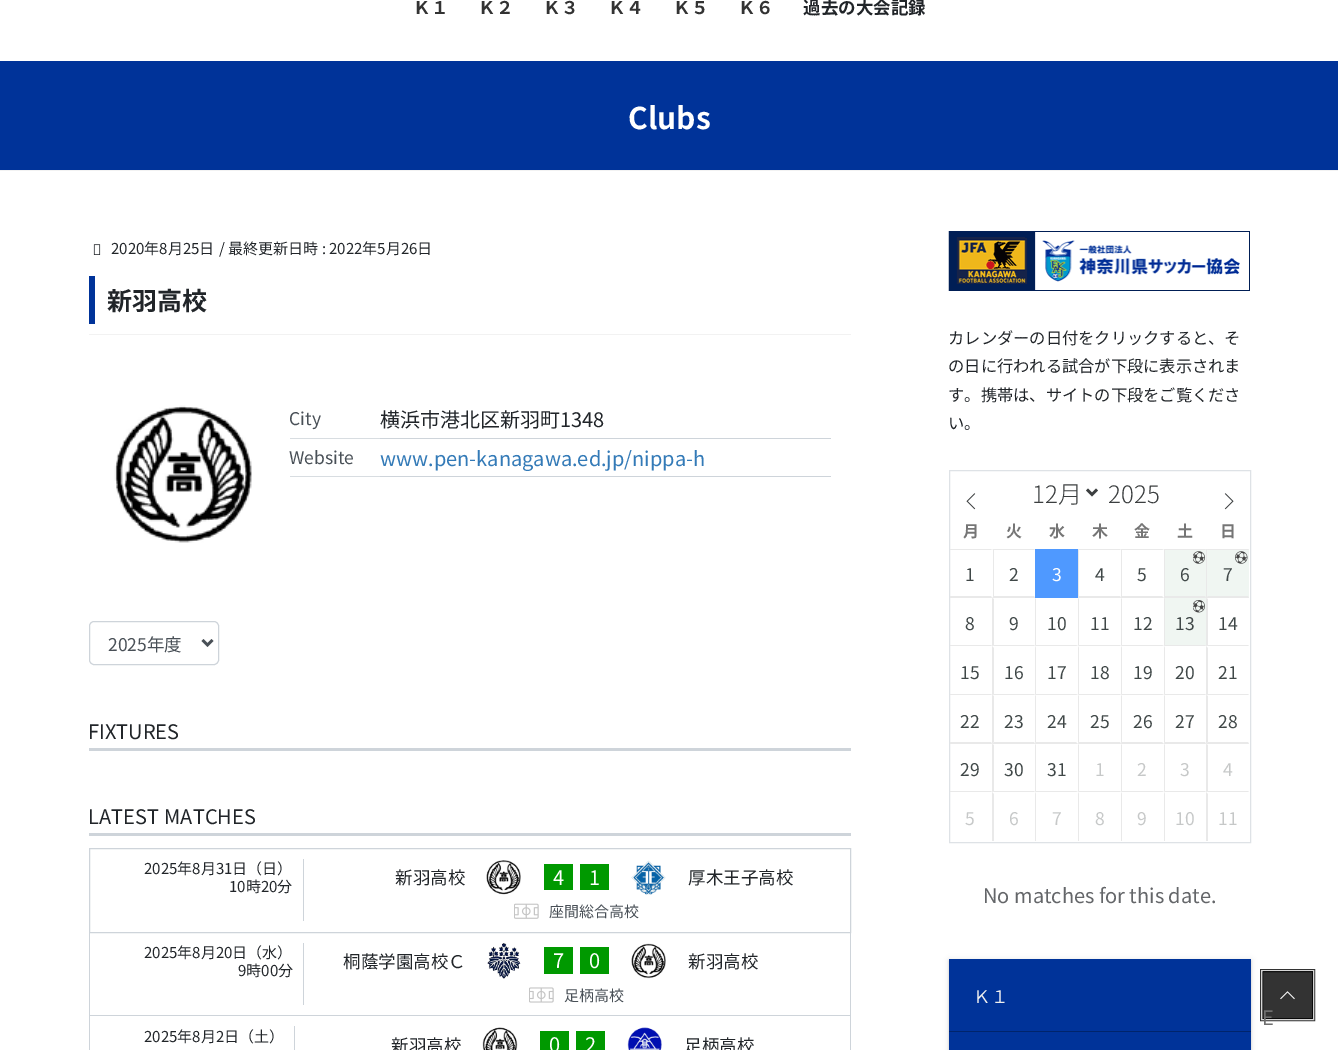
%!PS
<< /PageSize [1338 1050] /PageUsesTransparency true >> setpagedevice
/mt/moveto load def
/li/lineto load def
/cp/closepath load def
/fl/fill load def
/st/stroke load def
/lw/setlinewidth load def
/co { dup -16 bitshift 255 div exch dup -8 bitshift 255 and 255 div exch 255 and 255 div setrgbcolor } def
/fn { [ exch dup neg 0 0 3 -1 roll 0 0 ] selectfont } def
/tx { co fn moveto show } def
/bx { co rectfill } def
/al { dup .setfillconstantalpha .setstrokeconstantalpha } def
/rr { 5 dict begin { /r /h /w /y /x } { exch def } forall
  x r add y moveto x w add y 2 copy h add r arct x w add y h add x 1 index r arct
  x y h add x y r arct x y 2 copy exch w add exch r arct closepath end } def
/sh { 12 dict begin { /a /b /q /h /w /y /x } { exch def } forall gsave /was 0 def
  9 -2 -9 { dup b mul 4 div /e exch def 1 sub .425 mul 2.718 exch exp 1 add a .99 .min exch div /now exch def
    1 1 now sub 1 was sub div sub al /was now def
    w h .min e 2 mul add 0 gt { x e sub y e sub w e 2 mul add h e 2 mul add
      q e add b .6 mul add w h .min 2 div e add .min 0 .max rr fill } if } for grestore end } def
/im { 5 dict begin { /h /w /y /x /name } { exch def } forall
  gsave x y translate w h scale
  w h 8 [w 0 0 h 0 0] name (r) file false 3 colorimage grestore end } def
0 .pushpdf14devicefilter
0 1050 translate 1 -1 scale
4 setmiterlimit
0 0 1338 1050 16#FFFFFF bx
0 61 1338 4 16#003399 bx
0 65 1338 105 16#003399 bx
0 170 1338 1 16#F2F2F2 bx
89 334 762 1 16#F2F2F2 bx
(media/1.raw) 93 244 8 11 im
89 276 6 48 16#003399 bx
(media/2.raw) 114 405 138 138 im
290 438 90 1 16#D8DDE1 bx
380 438 451 1 16#CED4DA bx
290 476 90 1 16#D8DDE1 bx
380 476 451 1 16#CED4DA bx
89.5 621.5 129 43 4.5 rr st
16#495057 co
2.5 lw
202.5 640 mt 207.5 645 li 212.5 640 li st
89 748 762 3 16#CED4DA bx
89 833 762 3 16#CED4DA bx
1 lw
89.5 848.5 761 84 rectstroke
303 859 1 62 16#CED4DA bx
(media/3.raw) 486 860 35 35 im
544 864 29 26 16#009900 bx
580 864 29 26 16#009900 bx
(media/4.raw) 631 860 35 35 im
(media/5.raw) 514 903 25 16 im
850 933 1 117 16#CED4DA bx
89 1015 762 1 16#CED4DA bx
89 933 1 117 16#CED4DA bx
303 943 1 62 16#CED4DA bx
(media/6.raw) 487 943 34 36 im
544 947 29 27 16#009900 bx
580 947 29 27 16#009900 bx
(media/7.raw) 631 943 35 36 im
(media/8.raw) 529 987 25 16 im
294 1026 1 24 16#CED4DA bx
(media/9.raw) 482 1027 36 23 im
540 1031 29 19 16#009900 bx
576 1031 29 19 16#009900 bx
(media/10.raw) 627 1027 35 23 im
(media/11.raw) 948 231 302 60 im
16#DEE2E6 co
949.5 470.5 301 372 rectstroke
(media/12.raw) 966 493 10 17 im
16#3C3F40 co
2.5 lw
1087 489.5 mt 1092 494.5 li 1097 489.5 li st
(media/13.raw) 1224 493 10 17 im
16#E9E9E9 co
950 549 mt 992 549 li 991 550 li 950 550 li cp 992 598 mt 950 598 li 950 596 li 991 596 li cp fl
992 549 mt 1035 549 li 1034 550 li 994 550 li cp 1035 598 mt 992 598 li 994 596 li 1034 596 li cp fl
993 549 1 49 16#E9E9E9 bx
1035 549 43 49 16#4F99FF bx
16#E9E9E9 co
1078 549 mt 1121 549 li 1120 550 li 1079 550 li cp 1121 598 mt 1078 598 li 1079 596 li 1120 596 li cp fl
1078 549 1 49 16#E9E9E9 bx
1121 549 mt 1164 549 li 1162 550 li 1122 550 li cp 1164 598 mt 1121 598 li 1122 596 li 1162 596 li cp fl
1121 549 1 49 16#E9E9E9 bx
1165 549 41 49 16#F0F6F2 bx
16#E9E9E9 co
1164 549 mt 1206 549 li 1205 550 li 1165 550 li cp 1206 598 mt 1164 598 li 1165 596 li 1205 596 li cp fl
1164 549 1 49 16#E9E9E9 bx
(media/14.raw) 1193 551 12 13 im
1207 549 42 49 16#F0F6F2 bx
16#E9E9E9 co
1206 549 mt 1249 549 li 1248 550 li 1208 550 li cp 1249 598 mt 1206 598 li 1208 596 li 1248 596 li cp fl
1206 549 1 49 16#E9E9E9 bx
(media/15.raw) 1235 551 13 13 im
992 646 mt 950 646 li 950 645 li 991 645 li cp fl
1035 646 mt 992 646 li 994 645 li 1034 645 li cp fl
992 646 mt 992 598 li 994 599 li 994 645 li cp fl
1078 646 mt 1035 646 li 1036 645 li 1076 645 li cp fl
1035 646 mt 1035 598 li 1036 599 li 1036 645 li cp fl
1121 646 mt 1078 646 li 1079 645 li 1120 645 li cp fl
1078 646 mt 1078 598 li 1079 599 li 1079 645 li cp fl
1164 646 mt 1121 646 li 1122 645 li 1162 645 li cp fl
1121 646 mt 1121 598 li 1122 599 li 1122 645 li cp fl
1164 598 42 48 16#F0F6F2 bx
16#E9E9E9 co
1206 646 mt 1164 646 li 1165 645 li 1205 645 li cp fl
1164 646 mt 1164 598 li 1165 599 li 1165 645 li cp fl
(media/16.raw) 1193 600 12 13 im
1249 646 mt 1206 646 li 1208 645 li 1248 645 li cp fl
1206 646 mt 1206 598 li 1208 599 li 1208 645 li cp fl
992 695 mt 950 695 li 950 694 li 991 694 li cp fl
1035 695 mt 992 695 li 994 694 li 1034 694 li cp fl
992 695 mt 992 646 li 994 648 li 994 694 li cp fl
1078 695 mt 1035 695 li 1036 694 li 1076 694 li cp fl
1035 695 mt 1035 646 li 1036 648 li 1036 694 li cp fl
1121 695 mt 1078 695 li 1079 694 li 1120 694 li cp fl
1078 695 mt 1078 646 li 1079 648 li 1079 694 li cp fl
1164 695 mt 1121 695 li 1122 694 li 1162 694 li cp fl
1121 695 mt 1121 646 li 1122 648 li 1122 694 li cp fl
1206 695 mt 1164 695 li 1165 694 li 1205 694 li cp fl
1164 695 mt 1164 646 li 1165 648 li 1165 694 li cp fl
1249 695 mt 1206 695 li 1208 694 li 1248 694 li cp fl
1206 695 mt 1206 646 li 1208 648 li 1208 694 li cp fl
992 744 mt 950 744 li 950 742 li 991 742 li cp fl
1035 744 mt 992 744 li 994 742 li 1034 742 li cp fl
992 744 mt 992 695 li 994 696 li 994 742 li cp fl
1078 744 mt 1035 744 li 1036 742 li 1076 742 li cp fl
1035 744 mt 1035 695 li 1036 696 li 1036 742 li cp fl
1121 744 mt 1078 744 li 1079 742 li 1120 742 li cp fl
1078 744 mt 1078 695 li 1079 696 li 1079 742 li cp fl
1164 744 mt 1121 744 li 1122 742 li 1162 742 li cp fl
1121 744 mt 1121 695 li 1122 696 li 1122 742 li cp fl
1206 744 mt 1164 744 li 1165 742 li 1205 742 li cp fl
1164 744 mt 1164 695 li 1165 696 li 1165 742 li cp fl
1249 744 mt 1206 744 li 1208 742 li 1248 742 li cp fl
1206 744 mt 1206 695 li 1208 696 li 1208 742 li cp fl
992 792 mt 950 792 li 950 791 li 991 791 li cp fl
1035 792 mt 992 792 li 994 791 li 1034 791 li cp fl
992 792 mt 992 744 li 994 745 li 994 791 li cp fl
1078 792 mt 1035 792 li 1036 791 li 1076 791 li cp fl
1035 792 mt 1035 744 li 1036 745 li 1036 791 li cp fl
1121 792 mt 1078 792 li 1079 791 li 1120 791 li cp fl
1078 792 mt 1078 744 li 1079 745 li 1079 791 li cp fl
1164 792 mt 1121 792 li 1122 791 li 1162 791 li cp fl
1121 792 mt 1121 744 li 1122 745 li 1122 791 li cp fl
1206 792 mt 1164 792 li 1165 791 li 1205 791 li cp fl
1164 792 mt 1164 744 li 1165 745 li 1165 791 li cp fl
1249 792 mt 1206 792 li 1208 791 li 1248 791 li cp fl
1206 792 mt 1206 744 li 1208 745 li 1208 791 li cp fl
992 841 mt 992 792 li 994 794 li 994 841 li cp fl
1035 841 mt 1035 792 li 1036 794 li 1036 841 li cp fl
1078 841 mt 1078 792 li 1079 794 li 1079 841 li cp fl
1121 841 mt 1121 792 li 1122 794 li 1122 841 li cp fl
1164 841 mt 1164 792 li 1165 794 li 1165 841 li cp fl
1206 841 mt 1206 792 li 1208 794 li 1208 841 li cp fl
16#000000 co
949 960 302 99 0 3 .12 sh
949 961 302 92 0 1 .14 sh
949 959 302 91 16#003399 bx
949 1031 302 1 16#00246B bx
16#333333 co
3 lw
1261.5 970.5 52 49 rectstroke
16#D6D6D6 co
1 lw
1261.5 970.5 52 49 rectstroke
0.8 al
1263 971 50 48 16#000000 bx
1 al
(media/17.raw) 1280 991 15 9 im
(Ｋ１) 413 14 /NotoSansJP-Bold 17.5 16#333333 tx
(Ｋ２) 478 14 /NotoSansJP-Bold 17.5 16#333333 tx
(Ｋ３) 543 14 /NotoSansJP-Bold 17.5 16#333333 tx
(Ｋ４) 608 14 /NotoSansJP-Bold 17.5 16#333333 tx
(Ｋ５) 673 14 /NotoSansJP-Bold 17.5 16#333333 tx
(Ｋ６) 738 14 /NotoSansJP-Bold 17.5 16#333333 tx
(過去の大会記録) 803 14 /NotoSansJP-Bold 17.5 16#212529 tx
(Clubs) 628 129 /NotoSansJP-Bold 30 16#FFFFFF tx
(2020年8月25日) 111 254 /NotoSansJP-Regular 15 16#212529 tx
(/ 最終更新日時 : 2022年5月26日) 219 254 /NotoSansJP-Regular 15 16#212529 tx
(新羽高校) 107 310 /NotoSansJP-Bold 25 16#212529 tx
(City) 289 425 /NotoSansJP-Regular 17.5 16#495057 tx
(横浜市港北区新羽町1348) 380 427 /NotoSansJP-Regular 20 16#212529 tx
(Website) 289 464 /NotoSansJP-Regular 17.5 16#495057 tx
(www.pen-kanagawa.ed.jp/nippa-h) 380 466 /NotoSansJP-Regular 20 16#337AB7 tx
(2025年度) 108 651 /NotoSansJP-Regular 17.5 16#495057 tx
(FIXTURES) 88 739 /NotoSansJP-Regular 20 16#212529 tx
88 824 mt 1 0 32 (LATEST MATCHES) widthshow
(2025年8月31日（日）) 144 874 /NotoSansJP-Regular 15 16#212529 tx
(10時20分) 229 892 /NotoSansJP-Regular 15 16#212529 tx
(新羽高校) 395 884 /NotoSansJP-Regular 17.5 16#212529 tx
(4) 553 885 /NotoSansJP-Regular 20 16#FFFFFF tx
(1) 589 885 /NotoSansJP-Regular 20 16#FFFFFF tx
(厚木王子高校) 688 884 /NotoSansJP-Regular 17.5 16#212529 tx
(座間総合高校) 549 917 /NotoSansJP-Regular 15 16#495057 tx
(2025年8月20日（水）) 144 958 /NotoSansJP-Regular 15 16#212529 tx
(9時00分) 238 976 /NotoSansJP-Regular 15 16#212529 tx
(桐蔭学園高校Ｃ) 343 968 /NotoSansJP-Regular 17.5 16#212529 tx
(7) 553 968 /NotoSansJP-Regular 20 16#FFFFFF tx
(0) 589 968 /NotoSansJP-Regular 20 16#FFFFFF tx
(新羽高校) 688 968 /NotoSansJP-Regular 17.5 16#212529 tx
(足柄高校) 564 1001 /NotoSansJP-Regular 15 16#495057 tx
(2025年8月2日（土）) 144 1042 /NotoSansJP-Regular 15 16#212529 tx
(新羽高校) 391 1052 /NotoSansJP-Regular 17.5 16#212529 tx
(0) 549 1052 /NotoSansJP-Regular 20 16#FFFFFF tx
(2) 585 1052 /NotoSansJP-Regular 20 16#FFFFFF tx
(足柄高校) 684 1052 /NotoSansJP-Regular 17.5 16#212529 tx
(カレンダーの日付をクリックすると、そ) 948 344 /NotoSansJP-Regular 16.25 16#212529 tx
(の日に行われる試合が下段に表示されま) 948 372 /NotoSansJP-Regular 16.25 16#212529 tx
(す。携帯は、サイトの下段をご覧くださ) 948 401 /NotoSansJP-Regular 16.25 16#212529 tx
(い。) 948 429 /NotoSansJP-Regular 16.25 16#212529 tx
(12月) 1032 503 /NotoSansJP-Light 24 16#3C3F40 tx
(2025) 1108 503 /NotoSansJP-Light 24 16#3C3F40 tx
(月) 963 537 /NotoSansJP-Bold 16 16#757575 tx
(火) 1006 537 /NotoSansJP-Bold 16 16#757575 tx
(水) 1049 537 /NotoSansJP-Bold 16 16#757575 tx
(木) 1092 537 /NotoSansJP-Bold 16 16#757575 tx
(金) 1134 537 /NotoSansJP-Bold 16 16#757575 tx
(土) 1177 537 /NotoSansJP-Bold 16 16#757575 tx
(日) 1220 537 /NotoSansJP-Bold 16 16#757575 tx
(1) 965 581 /NotoSansJP-Regular 17.5 16#404848 tx
(2) 1009 581 /NotoSansJP-Regular 17.5 16#404848 tx
(3) 1052 581 /NotoSansJP-Regular 17.5 16#FFFFFF tx
(4) 1095 581 /NotoSansJP-Regular 17.5 16#404848 tx
(5) 1137 581 /NotoSansJP-Regular 17.5 16#404848 tx
(6) 1180 581 /NotoSansJP-Regular 17.5 16#404848 tx
(7) 1223 581 /NotoSansJP-Regular 17.5 16#404848 tx
(8) 965 630 /NotoSansJP-Regular 17.5 16#404848 tx
(9) 1009 630 /NotoSansJP-Regular 17.5 16#404848 tx
(10) 1047 630 /NotoSansJP-Regular 17.5 16#404848 tx
(11) 1090 630 /NotoSansJP-Regular 17.5 16#404848 tx
(12) 1133 630 /NotoSansJP-Regular 17.5 16#404848 tx
(13) 1175 630 /NotoSansJP-Regular 17.5 16#404848 tx
(14) 1218 630 /NotoSansJP-Regular 17.5 16#404848 tx
(15) 960 679 /NotoSansJP-Regular 17.5 16#404848 tx
(16) 1004 679 /NotoSansJP-Regular 17.5 16#404848 tx
(17) 1047 679 /NotoSansJP-Regular 17.5 16#404848 tx
(18) 1090 679 /NotoSansJP-Regular 17.5 16#404848 tx
(19) 1133 679 /NotoSansJP-Regular 17.5 16#404848 tx
(20) 1175 679 /NotoSansJP-Regular 17.5 16#404848 tx
(21) 1218 679 /NotoSansJP-Regular 17.5 16#404848 tx
(22) 960 728 /NotoSansJP-Regular 17.5 16#404848 tx
(23) 1004 728 /NotoSansJP-Regular 17.5 16#404848 tx
(24) 1047 728 /NotoSansJP-Regular 17.5 16#404848 tx
(25) 1090 728 /NotoSansJP-Regular 17.5 16#404848 tx
(26) 1133 728 /NotoSansJP-Regular 17.5 16#404848 tx
(27) 1175 728 /NotoSansJP-Regular 17.5 16#404848 tx
(28) 1218 728 /NotoSansJP-Regular 17.5 16#404848 tx
(29) 960 776 /NotoSansJP-Regular 17.5 16#404848 tx
(30) 1004 776 /NotoSansJP-Regular 17.5 16#404848 tx
(31) 1047 776 /NotoSansJP-Regular 17.5 16#404848 tx
(1) 1095 776 /NotoSansJP-Regular 17.5 16#C6C8C8 tx
(2) 1137 776 /NotoSansJP-Regular 17.5 16#C6C8C8 tx
(3) 1180 776 /NotoSansJP-Regular 17.5 16#C6C8C8 tx
(4) 1223 776 /NotoSansJP-Regular 17.5 16#C6C8C8 tx
(5) 965 825 /NotoSansJP-Regular 17.5 16#C6C8C8 tx
(6) 1009 825 /NotoSansJP-Regular 17.5 16#C6C8C8 tx
(7) 1052 825 /NotoSansJP-Regular 17.5 16#C6C8C8 tx
(8) 1095 825 /NotoSansJP-Regular 17.5 16#C6C8C8 tx
(9) 1137 825 /NotoSansJP-Regular 17.5 16#C6C8C8 tx
(10) 1175 825 /NotoSansJP-Regular 17.5 16#C6C8C8 tx
(11) 1218 825 /NotoSansJP-Regular 17.5 16#C6C8C8 tx
(No matches for this date.) 983 903 /NotoSansJP-Regular 20 16#646669 tx
(Ｋ１) 973 1003 /NotoSansJP-Regular 17.5 16#EEEEEE tx
(E) 1262 1025 /NotoSansJP-Regular 20 16#6E6E6E tx
.poppdf14devicefilter showpage
